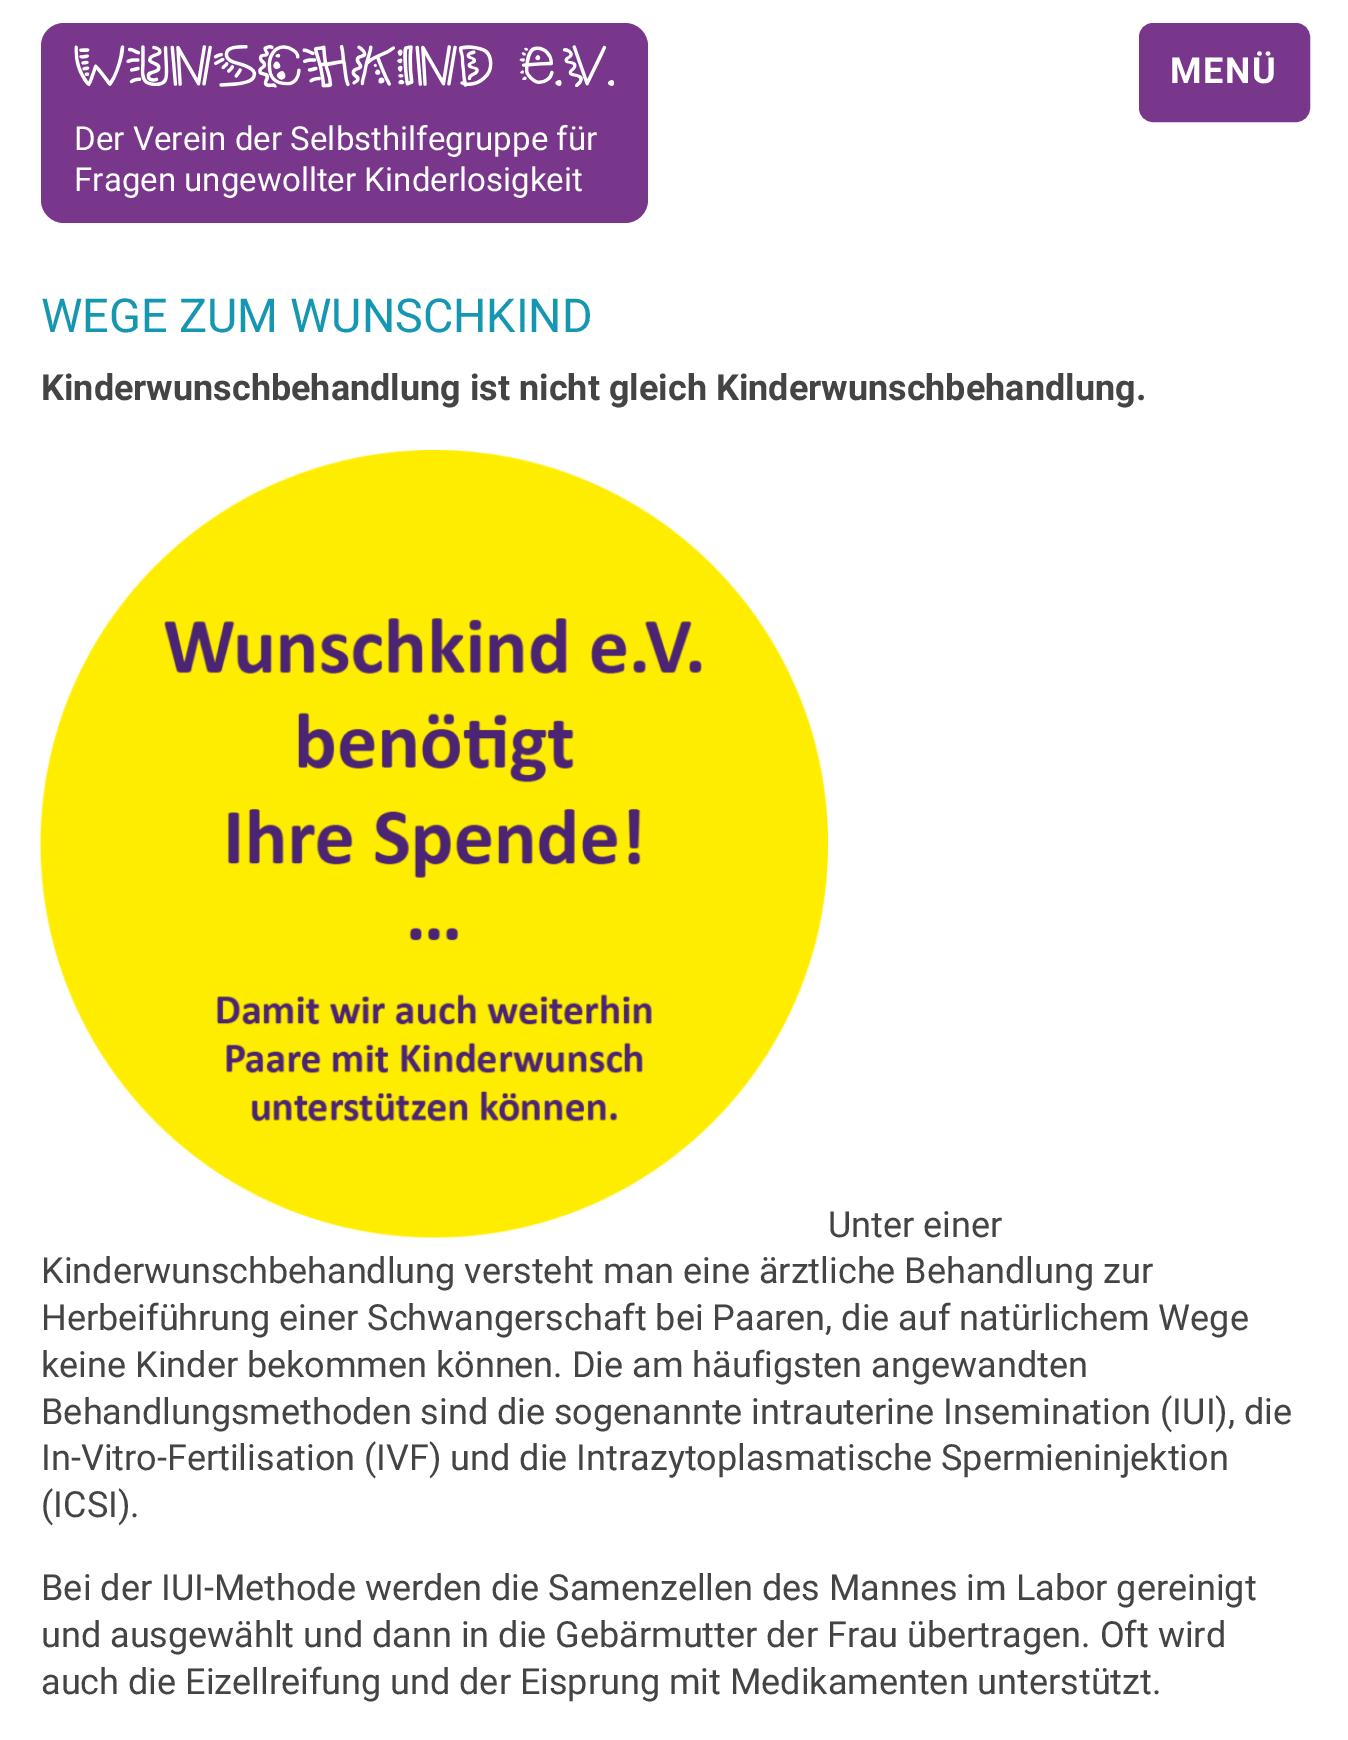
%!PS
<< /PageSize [1348 1740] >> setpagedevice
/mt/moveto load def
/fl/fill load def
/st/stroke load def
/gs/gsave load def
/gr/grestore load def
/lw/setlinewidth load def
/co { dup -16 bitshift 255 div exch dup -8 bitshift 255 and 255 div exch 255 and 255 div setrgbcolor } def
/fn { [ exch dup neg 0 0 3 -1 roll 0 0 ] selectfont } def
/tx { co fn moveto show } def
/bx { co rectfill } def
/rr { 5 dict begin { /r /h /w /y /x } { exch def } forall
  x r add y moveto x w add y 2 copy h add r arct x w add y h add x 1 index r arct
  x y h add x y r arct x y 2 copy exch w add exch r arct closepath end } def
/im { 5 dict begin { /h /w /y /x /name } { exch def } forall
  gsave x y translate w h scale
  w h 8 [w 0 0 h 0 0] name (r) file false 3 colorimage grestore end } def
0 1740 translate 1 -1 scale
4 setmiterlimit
0 0 1348 1740 16#FFFFFF bx
16#78378B co
1140 24 169 97 13 rr gs fl gr
2 lw
st
41 23 607 200 23 rr fl
(media/1.raw) 74 45 540 43 im
(media/2.raw) 40 450 788 788 im
/Roboto-Bold 36 fn
16#FFFFFF co
1170 83 mt 1.5 0 (MENÜ) ashow
(Der Verein der Selbsthilfegruppe für) 74 150 /Roboto-Regular 33.1 16#FFFFFF tx
(Fragen ungewollter Kinderlosigkeit) 74 191 /Roboto-Regular 33.1 16#FFFFFF tx
(WEGE ZUM WUNSCHKIND) 41 332 /Roboto-Regular 46.75 16#1697B1 tx
(Kinderwunschbehandlung ist nicht gleich Kinderwunschbehandlung.) 41 400 /Roboto-Bold 36 16#444444 tx
(Unter einer) 828 1237 /Roboto-Regular 36 16#444444 tx
(Kinderwunschbehandlung versteht man eine ärztliche Behandlung zur) 41 1283 /Roboto-Regular 36 16#444444 tx
(Herbeiführung einer Schwangerschaft bei Paaren, die auf natürlichem Wege) 41 1330 /Roboto-Regular 36 16#444444 tx
(keine Kinder bekommen können. Die am häufigsten angewandten) 41 1377 /Roboto-Regular 36 16#444444 tx
(Behandlungsmethoden sind die sogenannte intrauterine Insemination \(IUI\), die) 41 1424 /Roboto-Regular 36 16#444444 tx
(In-Vitro-Fertilisation \(IVF\) und die Intrazytoplasmatische Spermieninjektion) 41 1470 /Roboto-Regular 36 16#444444 tx
(\(ICSI\).) 41 1517 /Roboto-Regular 36 16#444444 tx
(Bei der IUI-Methode werden die Samenzellen des Mannes im Labor gereinigt) 41 1600 /Roboto-Regular 36 16#444444 tx
(und ausgewählt und dann in die Gebärmutter der Frau übertragen. Oft wird) 41 1647 /Roboto-Regular 36 16#444444 tx
(auch die Eizellreifung und der Eisprung mit Medikamenten unterstützt.) 41 1694 /Roboto-Regular 36 16#444444 tx
showpage
